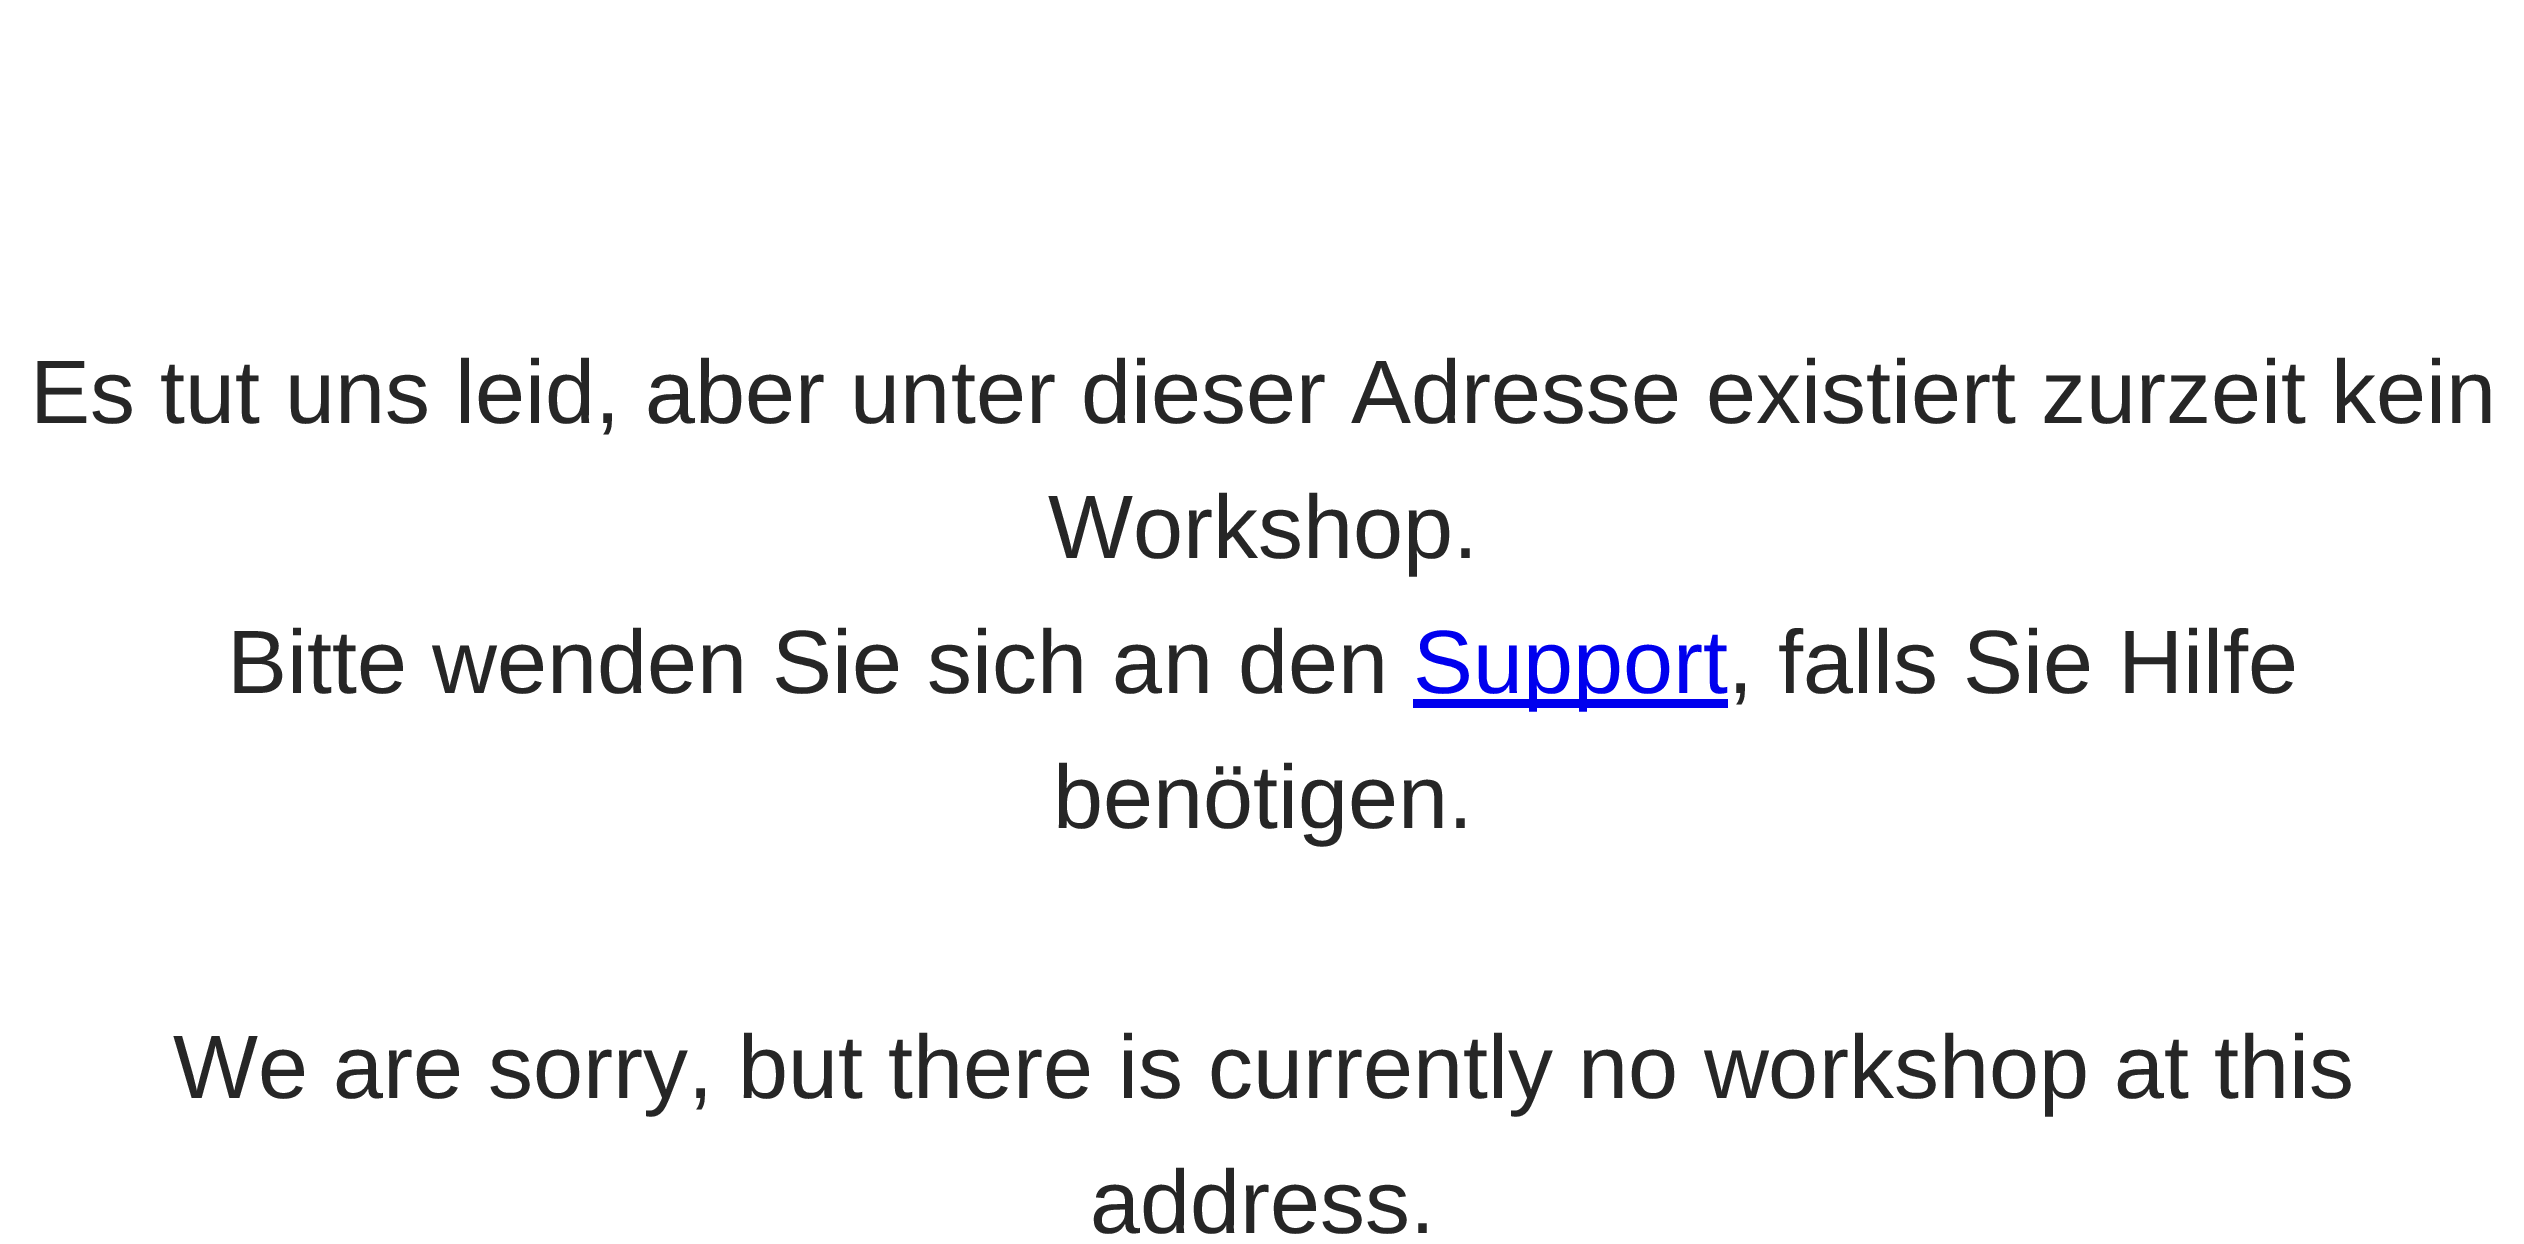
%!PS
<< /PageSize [2524 1244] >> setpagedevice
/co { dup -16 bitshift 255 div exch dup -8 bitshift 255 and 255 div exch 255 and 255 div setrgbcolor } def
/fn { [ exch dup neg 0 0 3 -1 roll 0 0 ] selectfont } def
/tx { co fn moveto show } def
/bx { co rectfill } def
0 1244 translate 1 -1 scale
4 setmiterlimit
0 0 2524 1244 16#FFFFFF bx
1413 699 315 9 16#0000EE bx
(Es tut uns leid, aber unter dieser Adresse existiert zurzeit kein) 30 423 /LiberationSans-Regular 90 16#262626 tx
(Workshop.) 1048 558 /LiberationSans-Regular 90 16#262626 tx
(Bitte wenden Sie sich an den) 227 693 /LiberationSans-Regular 90 16#262626 tx
(Support) 1413 693 /LiberationSans-Regular 90 16#0000EE tx
(, falls Sie Hilfe) 1728 693 /LiberationSans-Regular 90 16#262626 tx
(benötigen.) 1053 828 /LiberationSans-Regular 90 16#262626 tx
(We are sorry, but there is currently no workshop at this) 173 1098 /LiberationSans-Regular 90 16#262626 tx
(address.) 1090 1233 /LiberationSans-Regular 90 16#262626 tx
showpage
